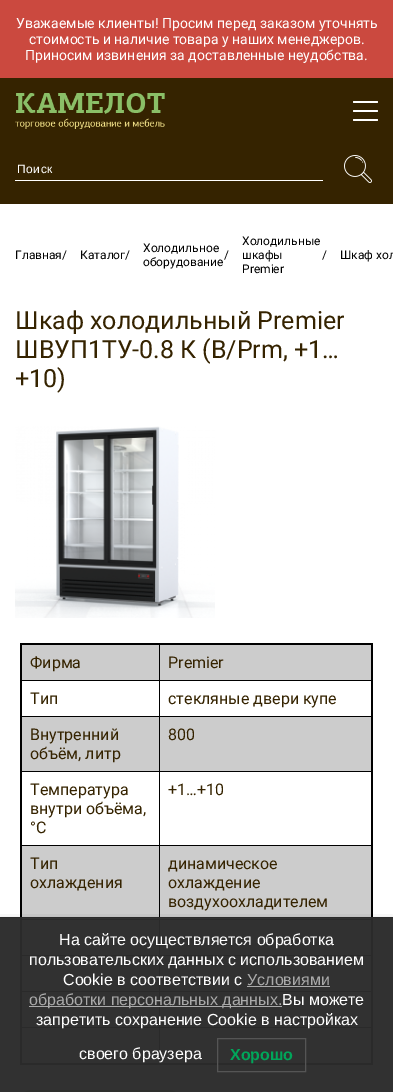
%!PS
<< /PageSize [393 1092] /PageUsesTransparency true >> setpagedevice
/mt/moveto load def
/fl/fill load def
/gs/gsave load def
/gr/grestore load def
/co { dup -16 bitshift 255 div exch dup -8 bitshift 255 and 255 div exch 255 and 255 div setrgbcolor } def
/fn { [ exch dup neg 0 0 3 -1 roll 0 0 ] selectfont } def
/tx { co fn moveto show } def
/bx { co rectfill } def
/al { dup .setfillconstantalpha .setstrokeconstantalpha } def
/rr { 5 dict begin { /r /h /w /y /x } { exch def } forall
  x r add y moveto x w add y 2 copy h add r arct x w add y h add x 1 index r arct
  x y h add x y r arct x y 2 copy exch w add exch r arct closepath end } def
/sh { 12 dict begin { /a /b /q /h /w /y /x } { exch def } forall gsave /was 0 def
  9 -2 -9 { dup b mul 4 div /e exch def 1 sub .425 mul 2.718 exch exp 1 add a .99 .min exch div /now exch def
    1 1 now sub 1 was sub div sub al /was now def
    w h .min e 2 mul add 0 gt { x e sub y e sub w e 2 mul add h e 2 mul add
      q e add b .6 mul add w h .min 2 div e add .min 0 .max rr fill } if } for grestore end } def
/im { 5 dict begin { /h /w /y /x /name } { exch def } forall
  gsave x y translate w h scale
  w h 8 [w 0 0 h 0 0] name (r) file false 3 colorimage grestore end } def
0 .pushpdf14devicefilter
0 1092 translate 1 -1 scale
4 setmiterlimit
0 0 393 1092 16#FFFFFF bx
0 918 393 174 16#313131 bx
0 78 393 126 16#352300 bx
0 0 393 78 16#CB493F bx
(media/1.raw) 15 93 150 36 im
16#FFFFFF co
353 101 25 2 1 rr fl
353 110 25 2 1 rr fl
353 119 25 2 1 rr fl
15 180 308 1 16#FFFFFF bx
(media/2.raw) 344 155 28 28 im
(media/3.raw) 15 426 200 192 im
22 645 349 35 16#CCCCCC bx
21 680 352 1 16#000000 bx
22 717 349 54 16#CCCCCC bx
21 716 352 1 16#000000 bx
21 771 352 1 16#000000 bx
22 846 349 71 16#CCCCCC bx
21 845 352 1 16#000000 bx
21 1027 352 1 16#2A2A2A bx
21 919 352 1 16#2A2A2A bx
21 955 352 1 16#2A2A2A bx
21 991 352 1 16#2A2A2A bx
159 919 1 145 16#2A2A2A bx
159 643 1 277 16#000000 bx
20 643 353 2 16#000000 bx
371 643 2 274 16#000000 bx
371 918 2 147 16#2A2A2A bx
20 1063 353 2 16#2A2A2A bx
20 643 2 274 16#000000 bx
20 918 2 147 16#2A2A2A bx
159 918 1 2 16#2A2A2A bx
16#2E2F2D co
15 1090 170 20 17.5 rr fl
gs
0 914 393 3 rectclip
16#000000 co
0 917 393 175 0 4 .1 sh
gr
0 917 393 1 16#2B2B2B bx
247 986 83 1 16#AAAAAA bx
29 1006 253 1 16#AAAAAA bx
16#555555 co
217.5 1038.5 88 33 rectstroke
(Уважаемые клиенты! Просим перед заказом уточнять) 16 28 /Roboto-Regular 14 16#FFFFFF tx
(стоимость и наличие товара у наших менеджеров.) 29 44 /Roboto-Regular 14 16#FFFFFF tx
(Приносим извинения за доставленные неудобства.) 25 60 /Roboto-Regular 14 16#FFFFFF tx
/LiberationSans-Regular 12 fn
17 173 mt .5 0 (Поиск) ashow
(Главная/) 15 259 /Roboto-Regular 12 16#000000 tx
(Каталог/) 80 259 /Roboto-Regular 12 16#000000 tx
(Холодильное) 143 252 /Roboto-Regular 12 16#000000 tx
(/) 224 259 /Roboto-Regular 12 16#000000 tx
(оборудование) 143 266 /Roboto-Regular 12 16#000000 tx
(Холодильные) 242 245 /Roboto-Regular 12 16#000000 tx
(шкафы) 242 259 /Roboto-Regular 12 16#000000 tx
(/) 322 259 /Roboto-Regular 12 16#000000 tx
(Premier) 242 273 /Roboto-Regular 12 16#000000 tx
(Шкаф хол) 340 259 /Roboto-Regular 12 16#000000 tx
(Шкаф холодильный Premier) 15 329 /Roboto-Regular 25 16#352300 tx
(ШВУП1ТУ-0.8 К \(В/Prm, +1…) 15 358 /Roboto-Regular 25 16#352300 tx
(+10\)) 15 387 /Roboto-Regular 25 16#352300 tx
(Фирма) 30 668 /Roboto-Regular 16 16#352300 tx
(Premier) 168 668 /Roboto-Regular 16 16#352300 tx
(Тип) 30 704 /Roboto-Regular 16 16#352300 tx
(стекляные двери купе) 168 704 /Roboto-Regular 16 16#352300 tx
(Внутренний) 30 740 /Roboto-Regular 16 16#352300 tx
(объём, литр) 30 759 /Roboto-Regular 16 16#352300 tx
(800) 168 740 /Roboto-Regular 16 16#352300 tx
(Температура) 30 795 /Roboto-Regular 16 16#352300 tx
(внутри объёма,) 30 814 /Roboto-Regular 16 16#352300 tx
(°C) 30 833 /Roboto-Regular 16 16#352300 tx
(+1…+10) 168 795 /Roboto-Regular 16 16#352300 tx
(Тип) 30 869 /Roboto-Regular 16 16#352300 tx
(охлаждения) 30 888 /Roboto-Regular 16 16#352300 tx
(динамическое) 168 869 /Roboto-Regular 16 16#352300 tx
(охлаждение) 168 888 /Roboto-Regular 16 16#352300 tx
(воздухоохладителем) 168 907 /Roboto-Regular 16 16#352300 tx
(На сайте осуществляется обработка) 59 945 /LiberationSans-Regular 16 16#FFFFFF tx
(пользовательских данных с использованием) 29 965 /LiberationSans-Regular 16 16#FFFFFF tx
(Cookie в соответствии c) 63 985 /LiberationSans-Regular 16 16#FFFFFF tx
(Условиями) 247 985 /LiberationSans-Regular 16 16#AAAAAA tx
(обработки персональных данных.) 29 1005 /LiberationSans-Regular 16 16#AAAAAA tx
(Вы можете) 282 1005 /LiberationSans-Regular 16 16#FFFFFF tx
(запретить сохранение Cookie в настройках) 36 1025 /LiberationSans-Regular 16 16#FFFFFF tx
(своего браузера) 79 1059 /LiberationSans-Regular 16 16#FFFFFF tx
(Хорошо) 230 1060 /LiberationSans-Bold 16 16#00A65A tx
.poppdf14devicefilter showpage
